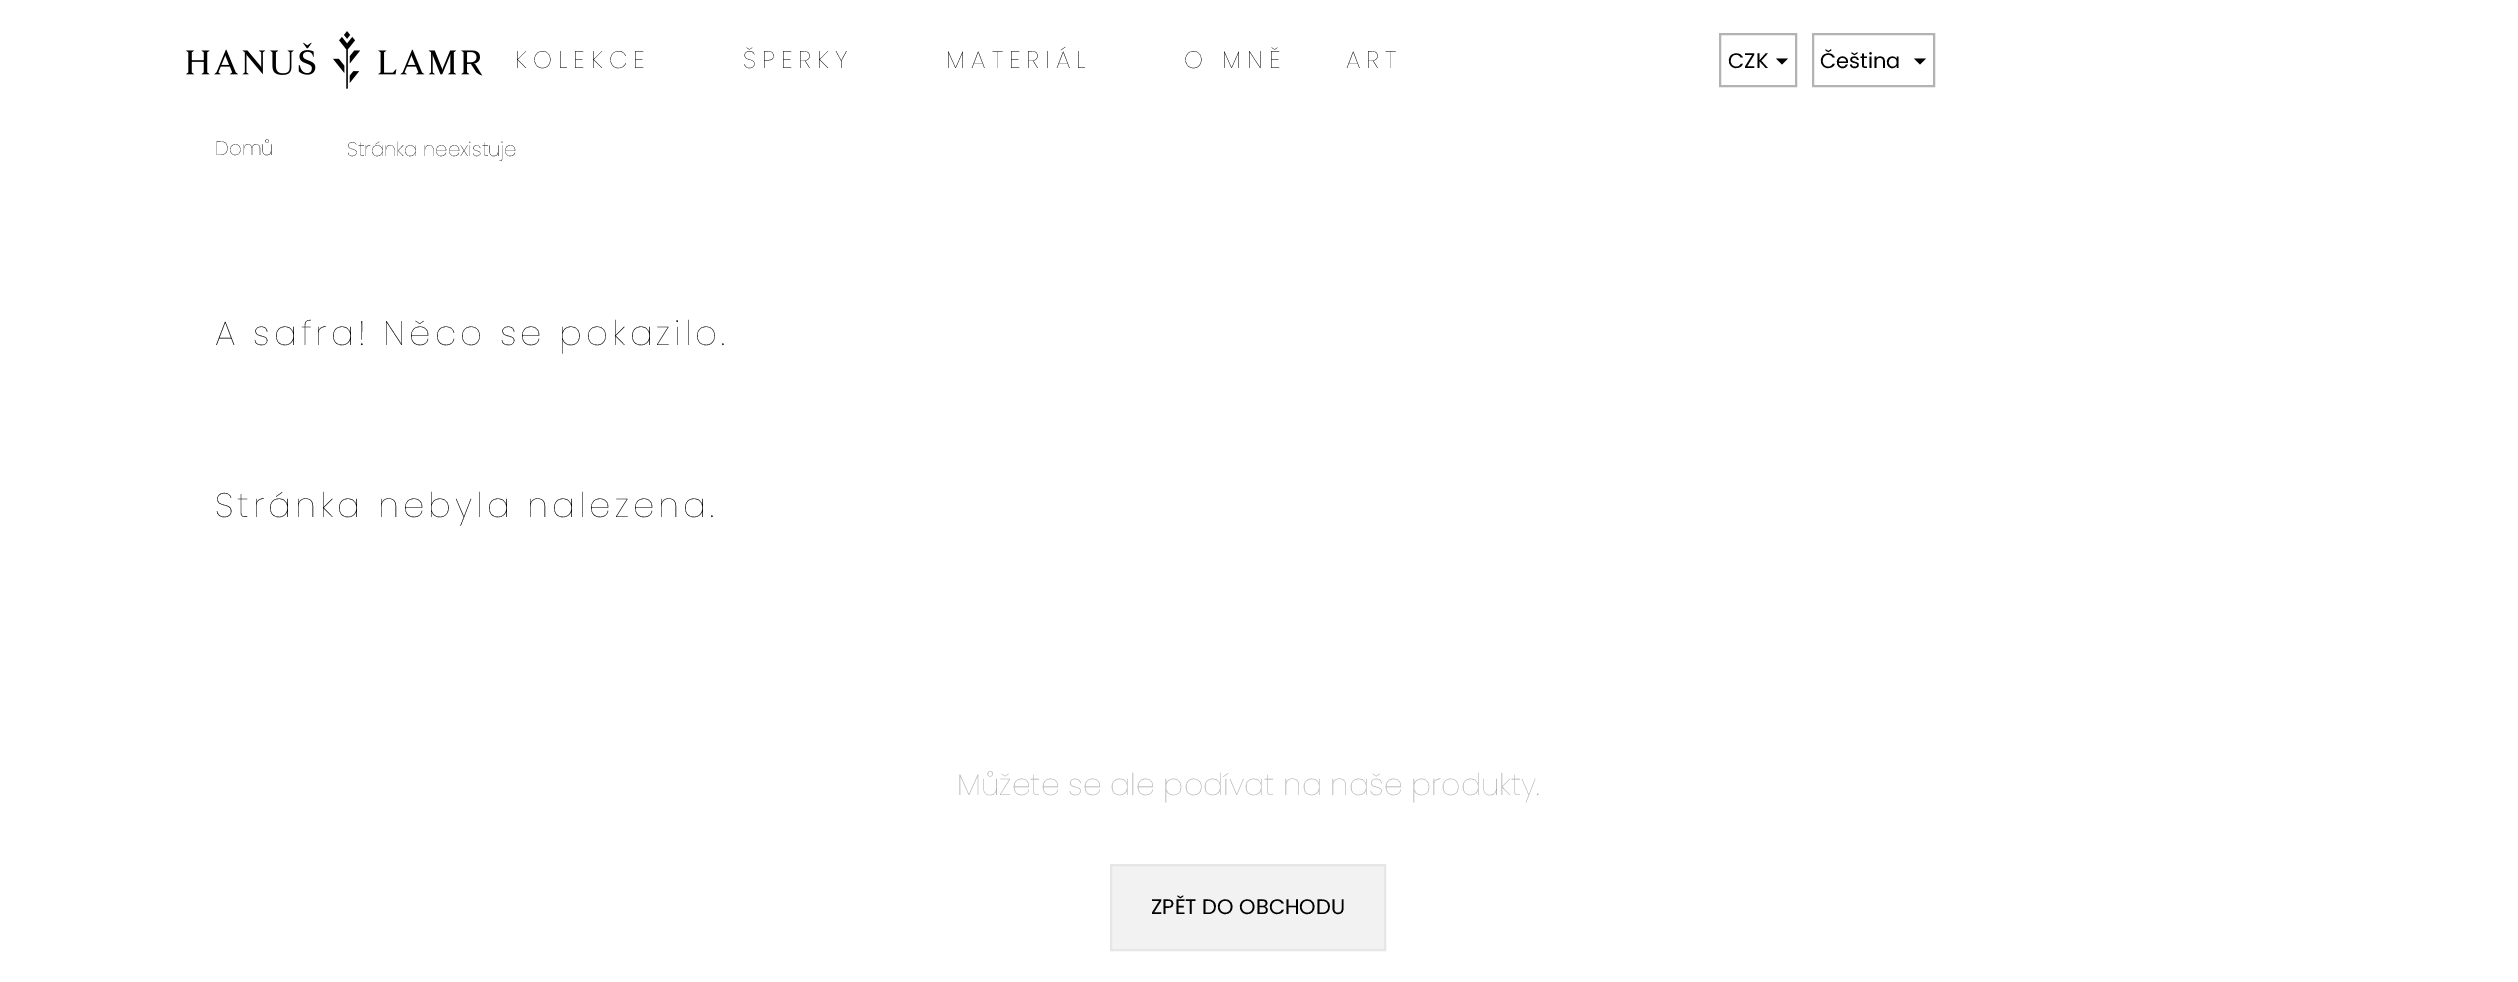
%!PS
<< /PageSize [2518 982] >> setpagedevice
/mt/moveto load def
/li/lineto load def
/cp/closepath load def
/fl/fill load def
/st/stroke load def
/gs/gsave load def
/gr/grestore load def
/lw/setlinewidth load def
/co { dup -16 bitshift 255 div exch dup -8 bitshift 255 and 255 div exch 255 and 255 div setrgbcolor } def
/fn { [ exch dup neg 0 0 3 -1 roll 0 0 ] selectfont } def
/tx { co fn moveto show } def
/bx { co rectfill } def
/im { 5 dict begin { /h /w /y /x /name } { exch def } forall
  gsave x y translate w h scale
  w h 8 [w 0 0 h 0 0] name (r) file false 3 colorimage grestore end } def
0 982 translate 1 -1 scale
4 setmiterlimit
0 0 2518 982 16#FFFFFF bx
(media/1.raw) 186 31 297 58 im
16#B3B3B3 co
2 lw
1720 34 76 52 rectstroke
16#000000 co
1776 58.5 mt 1788 58.5 li 1782 64.5 li cp fl
16#B3B3B3 co
1813 34 121 52 rectstroke
16#000000 co
1914 58.5 mt 1926 58.5 li 1920 64.5 li cp fl
16#F2F2F2 co
1111 865 mt 1385 865 li 1385 950 li 1111 950 li cp gs fl gr
16#E6E6E6 co
st
/Poppins-Thin 24 fn
16#000000 co
515 68 mt 6 0 (KOLEKCE) ashow
743 68 mt 6 0 (ŠPERKY) ashow
946 68 mt 6 0 (MATERIÁL) ashow
1184 68 mt 6 0 (O MNĚ) ashow
1346 68 mt 6 0 (ART) ashow
(CZK) 1728 68 /Poppins-Regular 21 16#000000 tx
(Čeština) 1820 68 /Poppins-Regular 21 16#000000 tx
(Domů) 215 155 /Poppins-Thin 19.75 16#000000 tx
(Stránka neexistuje) 347 156 /Poppins-Thin 19.75 16#000000 tx
/Poppins-Thin 34 fn
215 345 mt 4 0 (A safra! Něco se pokazilo.) ashow
215 517 mt 4 0 (Stránka nebyla nalezena.) ashow
(Můžete se ale podívat na naše produkty.) 957 795 /Poppins-Thin 30 16#AAAAAA tx
(ZPĚT DO OBCHODU) 1151 914 /Poppins-Regular 21 16#000000 tx
showpage
